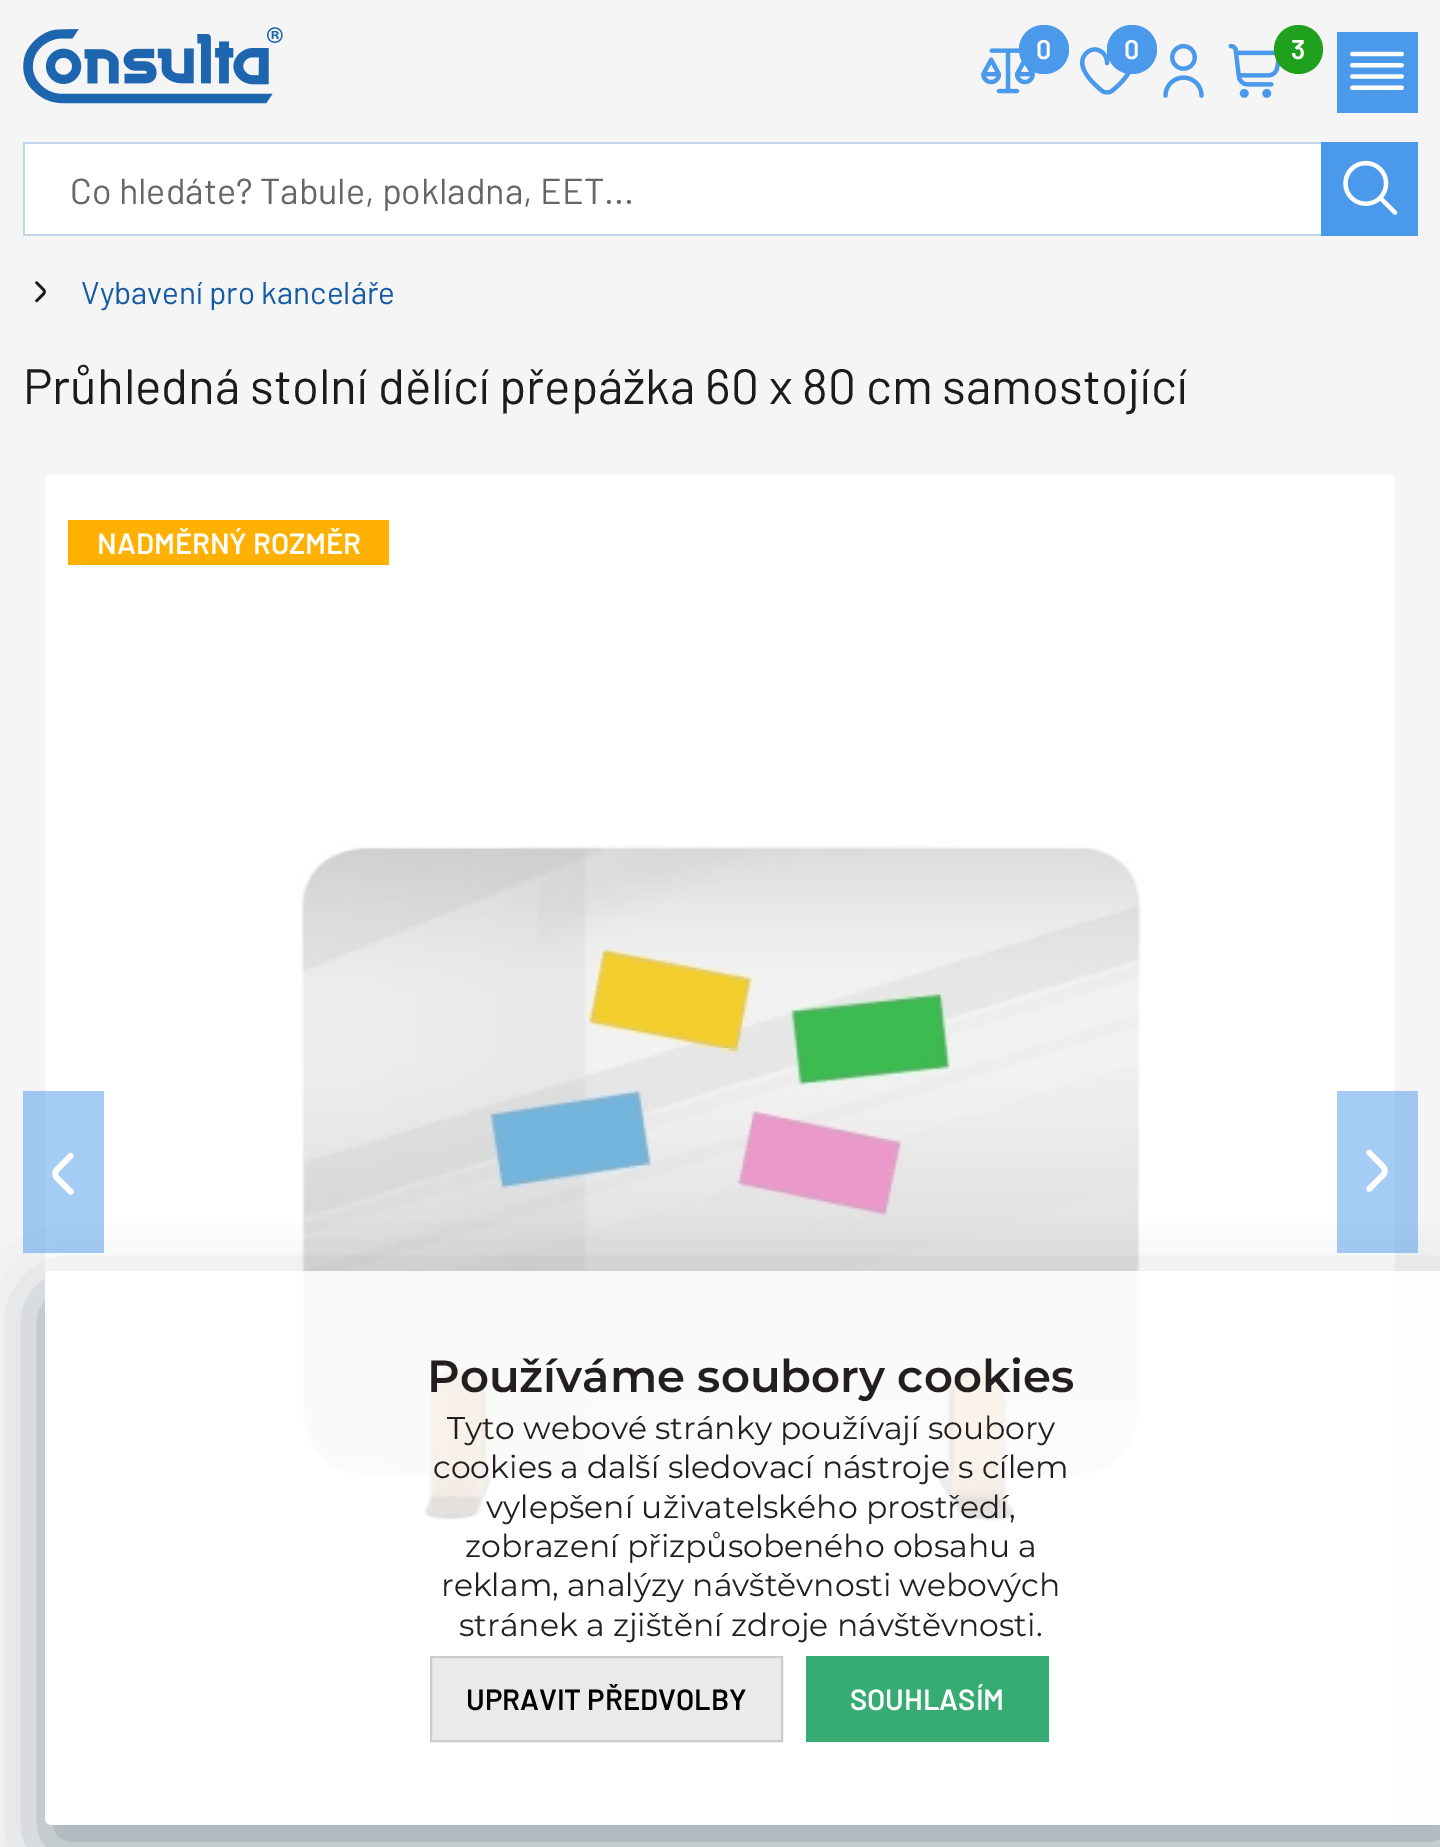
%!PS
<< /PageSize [1440 1847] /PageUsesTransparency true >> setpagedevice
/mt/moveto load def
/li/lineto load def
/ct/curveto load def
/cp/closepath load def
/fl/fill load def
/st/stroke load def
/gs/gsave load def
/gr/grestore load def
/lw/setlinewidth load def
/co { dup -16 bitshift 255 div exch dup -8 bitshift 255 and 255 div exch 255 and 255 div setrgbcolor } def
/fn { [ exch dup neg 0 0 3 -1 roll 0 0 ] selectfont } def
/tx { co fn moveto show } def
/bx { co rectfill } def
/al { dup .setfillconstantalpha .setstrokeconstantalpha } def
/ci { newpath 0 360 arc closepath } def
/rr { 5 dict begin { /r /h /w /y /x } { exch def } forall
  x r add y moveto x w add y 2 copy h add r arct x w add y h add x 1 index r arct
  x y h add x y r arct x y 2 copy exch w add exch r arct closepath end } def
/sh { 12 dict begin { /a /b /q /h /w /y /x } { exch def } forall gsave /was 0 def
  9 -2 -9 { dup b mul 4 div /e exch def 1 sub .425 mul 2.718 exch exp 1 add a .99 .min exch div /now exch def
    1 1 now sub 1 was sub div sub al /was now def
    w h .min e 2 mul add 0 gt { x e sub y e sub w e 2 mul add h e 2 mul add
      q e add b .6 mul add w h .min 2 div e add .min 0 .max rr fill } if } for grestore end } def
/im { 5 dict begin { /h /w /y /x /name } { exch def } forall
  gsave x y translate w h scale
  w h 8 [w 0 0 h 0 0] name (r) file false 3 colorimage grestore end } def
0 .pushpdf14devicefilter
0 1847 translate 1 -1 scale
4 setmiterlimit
0 0 1440 1847 16#F5F5F5 bx
(media/1.raw) 23 27 260 77 im
(media/2.raw) 981 48 54 46 im
16#4A99EB co
1019 25 50 49 24.5 rr fl
(media/3.raw) 1080 47 51 48 im
1107 25 50 49 24.5 rr fl
(media/4.raw) 1228 43 52 55 im
16#20A11D co
1298.5 49.5 24.5 ci fl
1337 32 81 81 16#4A99EB bx
(media/5.raw) 1350 51 54 39 im
25 144 1296 90 16#FFFFFF bx
23 142 1298 2 16#C4D6E9 bx
23 234 1298 2 16#C4D6E9 bx
23 142 2 94 16#C4D6E9 bx
1321 142 97 94 16#4A99EB bx
(media/6.raw) 1343 160 55 55 im
(media/7.raw) 1163 43 41 55 im
(media/8.raw) 35 281 11 22 im
(media/9.raw) 45 475 1350 1350 im
68 520 321 45 16#FFB000 bx
0.5 al
23 1091 81 162 16#4A99EB bx
1 al
(media/10.raw) 52 1152 22 43 im
0.5 al
1337 1091 81 162 16#4A99EB bx
1 al
(media/11.raw) 1366 1149 22 43 im
gs
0 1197 mt 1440 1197 li 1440 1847 li 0 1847 li cp 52 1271 mt 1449 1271 li 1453 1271 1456 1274 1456 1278 ct 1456 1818 li 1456 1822 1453 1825 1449 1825 ct 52 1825 li 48 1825 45 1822 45 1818 ct 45 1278 li 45 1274 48 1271 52 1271 ct cp eoclip newpath
16#385061 co
45 1296 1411 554 7 32.5 .5 sh
gr
0.85 al
16#FFFFFF co
45 1271 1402 554 7 rr fl
1 al
16#EAEAEA co
431 1657 mt 782 1657 li 782 1741 li 431 1741 li cp gs fl gr
16#CCCCCC co
2 lw
st
806 1656 243 86 16#36AB72 bx
(0) 1036 59 /Barlow-SemiBold 27 16#FFFFFF tx
(0) 1124 59 /Barlow-SemiBold 27 16#FFFFFF tx
(3) 1291 59 /Barlow-SemiBold 27 16#FFFFFF tx
(Co hledáte? Tabule, pokladna, EET...) 70 204 /Barlow-Regular 36 16#666666 tx
(Vybavení pro kanceláře) 81 304 /Barlow-Regular 31.5 16#145BA6 tx
(Průhledná stolní dělící přepážka 60 x 80 cm samostojící) 23 404 /Barlow-Regular 49.5 16#1B1B1B tx
(NADMĚRNÝ ROZMĚR) 97 554 /Barlow-SemiBold 29.25 16#FFFFFF tx
(Používáme soubory cookies) 427 1392 /Montserrat-SemiBold 45 16#231F20 tx
(Tyto webové stránky používají soubory) 447 1439 /Montserrat-Regular 31.5 16#231F20 tx
(cookies a další sledovací nástroje s cílem) 433 1478 /Montserrat-Regular 31.5 16#231F20 tx
(vylepšení uživatelského prostředí,) 486 1518 /Montserrat-Regular 31.5 16#231F20 tx
(zobrazení přizpůsobeného obsahu a) 465 1557 /Montserrat-Regular 31.5 16#231F20 tx
(reklam, analýzy návštěvnosti webových) 441 1596 /Montserrat-Regular 31.5 16#231F20 tx
(stránek a zjištění zdroje návštěvnosti.) 459 1636 /Montserrat-Regular 31.5 16#231F20 tx
(UPRAVIT PŘEDVOLBY) 466 1710 /Barlow-SemiBold 29.25 16#000000 tx
(SOUHLASÍM) 850 1710 /Barlow-SemiBold 29.25 16#FFFFFF tx
.poppdf14devicefilter showpage
